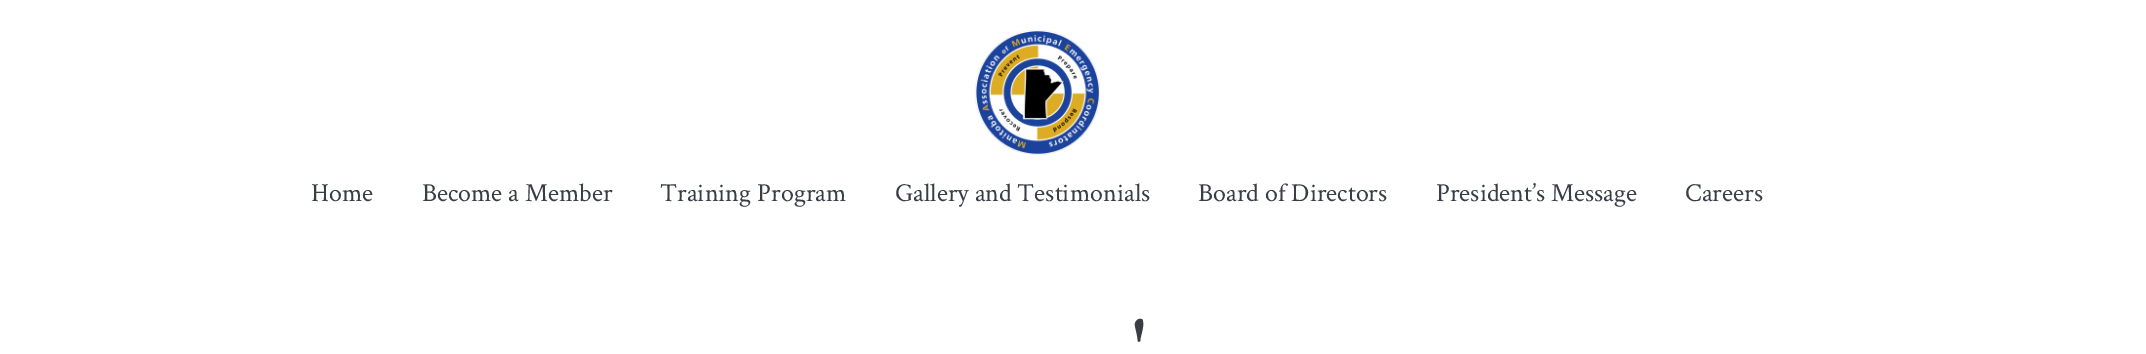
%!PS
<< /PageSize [2146 354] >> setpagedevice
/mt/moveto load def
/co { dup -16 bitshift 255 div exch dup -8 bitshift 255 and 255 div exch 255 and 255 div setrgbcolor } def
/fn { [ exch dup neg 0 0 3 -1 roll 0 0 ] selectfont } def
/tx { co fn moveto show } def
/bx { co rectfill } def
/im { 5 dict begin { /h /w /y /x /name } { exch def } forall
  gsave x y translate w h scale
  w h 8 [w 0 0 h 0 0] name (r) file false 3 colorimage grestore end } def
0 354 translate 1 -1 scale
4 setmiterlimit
0 0 2146 354 16#FFFFFF bx
(media/1.raw) 975 30 125 125 im
(Home) 311 201 /CrimsonText-Regular 26 16#393D46 tx
(Become a Member) 422 201 /CrimsonText-Regular 26 16#393D46 tx
(Training Program) 660 201 /CrimsonText-Regular 26 16#393D46 tx
(Gallery and Testimonials) 895 201 /CrimsonText-Regular 26 16#393D46 tx
(Board of Directors) 1198 201 /CrimsonText-Regular 26 16#393D46 tx
(President’s Message) 1436 201 /CrimsonText-Regular 26 16#393D46 tx
(Careers) 1685 201 /CrimsonText-Regular 26 16#393D46 tx
/CrimsonText-Regular 90 fn
1131 380 mt -2 0 (') ashow
showpage
